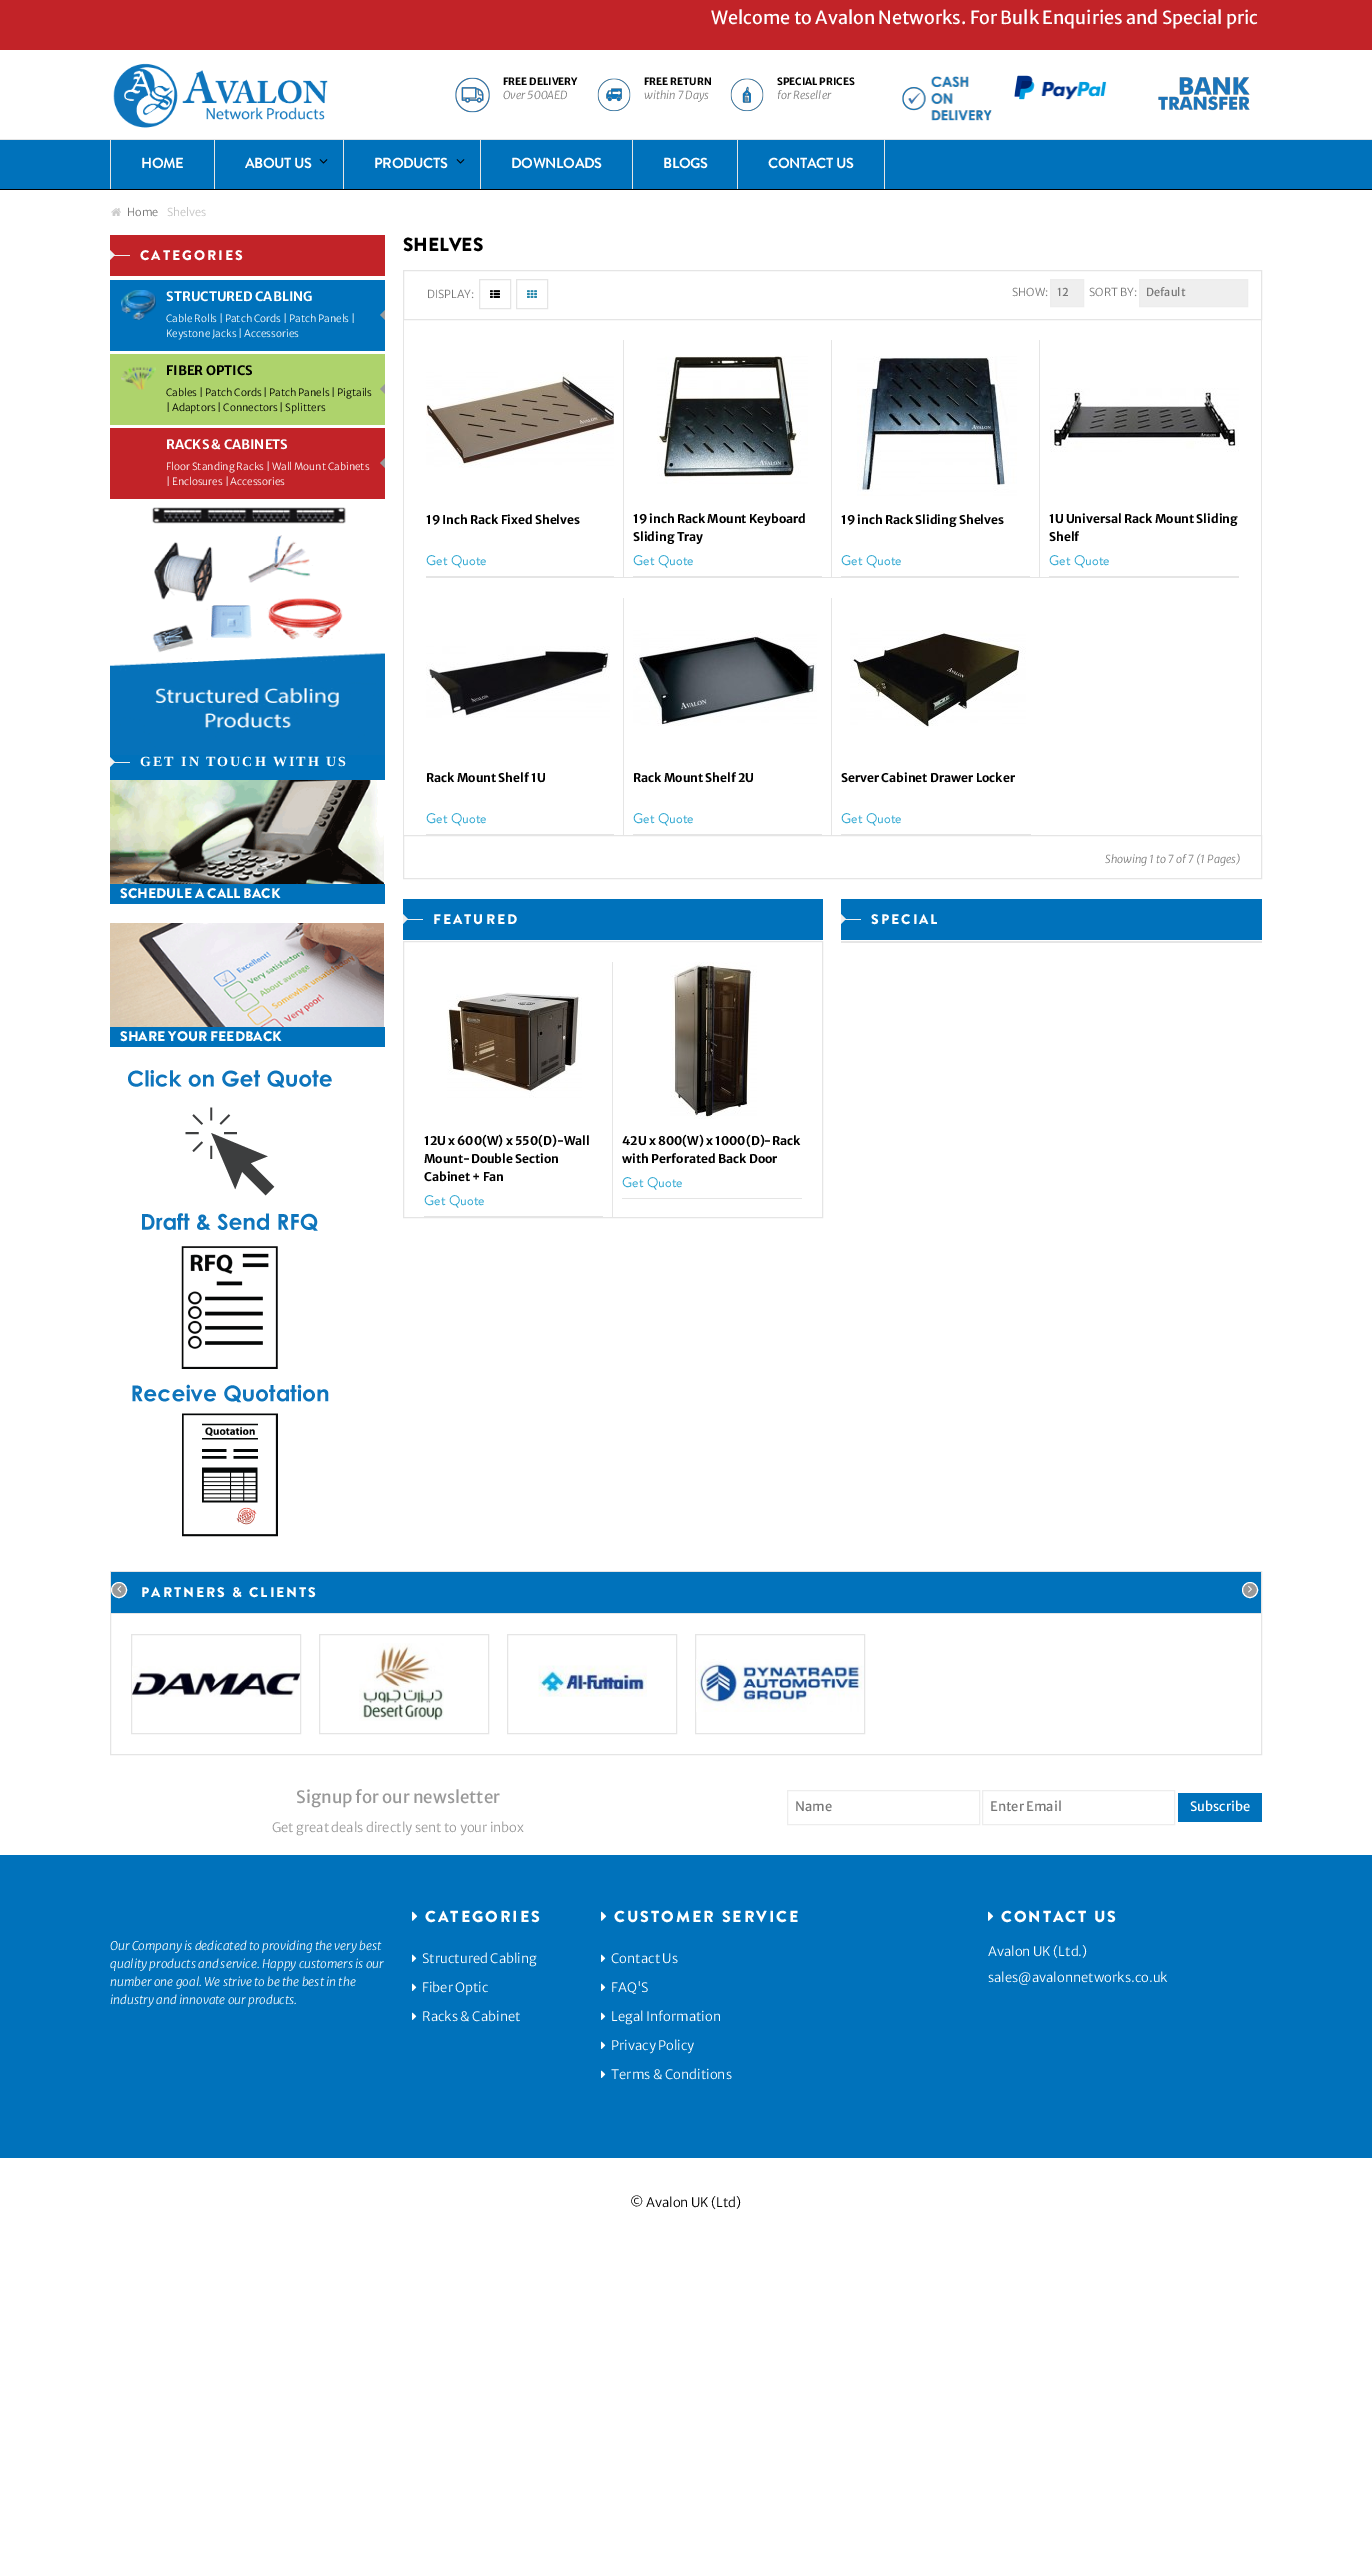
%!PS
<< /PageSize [1372 2565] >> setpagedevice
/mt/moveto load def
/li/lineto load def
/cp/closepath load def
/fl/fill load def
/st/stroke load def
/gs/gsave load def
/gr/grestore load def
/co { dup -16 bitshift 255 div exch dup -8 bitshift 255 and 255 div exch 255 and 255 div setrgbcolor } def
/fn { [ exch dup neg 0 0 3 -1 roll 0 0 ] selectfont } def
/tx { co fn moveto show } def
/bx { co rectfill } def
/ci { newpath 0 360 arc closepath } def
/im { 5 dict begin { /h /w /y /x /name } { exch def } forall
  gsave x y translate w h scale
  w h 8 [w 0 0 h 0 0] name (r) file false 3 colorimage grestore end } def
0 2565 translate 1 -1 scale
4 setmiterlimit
0 0 1372 2565 16#FFFFFF bx
0 0 1372 50 16#C22328 bx
(media/1.raw) 113 63 215 65 im
(media/2.raw) 455 77 35 36 im
(media/3.raw) 597 78 34 34 im
(media/4.raw) 730 78 34 34 im
(media/5.raw) 902 76 90 45 im
(media/6.raw) 1014 75 93 25 im
(media/7.raw) 1158 77 92 34 im
0 140 1372 49 16#0072BB bx
0 139 1372 1 16#E5E5E5 bx
0 189 1372 1 16#000000 bx
110 140 1 49 16#E5E5E5 bx
214 140 1 49 16#E5E5E5 bx
(media/8.raw) 319 159 9 5 im
343 140 1 49 16#E5E5E5 bx
(media/8.raw) 456 159 9 5 im
480 140 1 49 16#E5E5E5 bx
632 140 1 49 16#E5E5E5 bx
884 140 1 49 16#E5E5E5 bx
737 140 1 49 16#E5E5E5 bx
(media/9.raw) 111 208 10 8 im
110 235 275 41 16#C22328 bx
16#EEEEEE co
110 260 mt 110 250 li 115 255 li cp fl
110 255 20 1 16#EEEEEE bx
110 280 275 71 16#0072BB bx
(media/10.raw) 121 290 35 30 im
16#999999 co
385 310 mt 385 320 li 380 315 li cp fl
110 354 275 71 16#AED36C bx
(media/11.raw) 121 367 35 23 im
16#999999 co
385 384 mt 385 394 li 380 389 li cp fl
110 428 275 71 16#C22328 bx
16#999999 co
385 458 mt 385 468 li 380 463 li cp fl
(media/12.raw) 110 507 275 248 im
110 755 275 25 16#0072BB bx
16#EEEEEE co
110 767 mt 110 757 li 115 762 li cp fl
110 762 20 1 16#EEEEEE bx
(media/13.raw) 110 780 274 104 im
110 884 275 20 16#0072BB bx
(media/14.raw) 110 923 274 104 im
110 1027 275 20 16#0072BB bx
(media/15.raw) 128 1070 204 467 im
16#E5E5E5 co
403.5 270.5 858 49 rectstroke
479.5 279.5 31 29 rectstroke
(media/16.raw) 490 290 10 8 im
516.5 279.5 31 29 rectstroke
(media/17.raw) 527 290 10 8 im
16#EFEFEF co
1050.5 279.5 mt 1083.5 279.5 li 1083.5 306.5 li 1050.5 306.5 li cp gs fl gr
16#EDEDED co
st
16#EFEFEF co
1139.5 279.5 mt 1247.5 279.5 li 1247.5 306.5 li 1139.5 306.5 li cp gs fl gr
16#EDEDED co
st
1261 320 1 515 16#E5E5E5 bx
403 320 1 515 16#E5E5E5 bx
426 577 813 1 16#E5E5E5 bx
623 340 1 237 16#E5E5E5 bx
(media/18.raw) 426 372 188 96 im
426 576 188 1 16#E5E5E5 bx
831 340 1 237 16#E5E5E5 bx
(media/19.raw) 657 356 151 128 im
633 576 189 1 16#E5E5E5 bx
1039 340 1 237 16#E5E5E5 bx
(media/20.raw) 857 356 160 140 im
841 576 189 1 16#E5E5E5 bx
(media/21.raw) 1050 388 189 64 im
1049 576 190 1 16#E5E5E5 bx
623 598 1 237 16#E5E5E5 bx
(media/22.raw) 426 646 184 72 im
426 834 188 1 16#E5E5E5 bx
831 598 1 237 16#E5E5E5 bx
(media/23.raw) 633 630 184 96 im
633 834 189 1 16#E5E5E5 bx
(media/24.raw) 850 630 176 98 im
841 834 190 1 16#E5E5E5 bx
403.5 835.5 858 43 rectstroke
403 899 420 41 16#0072BB bx
16#EEEEEE co
403 924 mt 403 914 li 408 919 li cp fl
403 919 20 1 16#EEEEEE bx
16#E5E5E5 co
403.5 941.5 419 276 rectstroke
612 962 1 255 16#E5E5E5 bx
(media/25.raw) 447 992 135 106 im
424 1216 179 1 16#E5E5E5 bx
(media/26.raw) 670 962 87 157 im
622 1198 180 1 16#E5E5E5 bx
841 899 421 41 16#0072BB bx
16#EEEEEE co
841 924 mt 841 914 li 846 919 li cp fl
841 919 20 1 16#EEEEEE bx
841 941 421 2 16#E5E5E5 bx
110.5 1571.5 1151 183 rectstroke
111 1572 1150 41 16#0072BB bx
16#999999 co
119 1590 7.5 ci gs fl gr
16#FFFFFF co
st
(media/27.raw) 117 1585 5 8 im
16#999999 co
1250 1590 7.5 ci gs fl gr
16#FFFFFF co
st
(media/28.raw) 1248 1585 4 8 im
111 1613 1150 1 16#E5E5E5 bx
131.5 1634.5 169 99 rectstroke
(media/29.raw) 132 1666 168 31 im
319.5 1634.5 169 99 rectstroke
(media/30.raw) 359 1643 85 78 im
507.5 1634.5 169 99 rectstroke
(media/31.raw) 538 1665 109 32 im
695.5 1634.5 169 99 rectstroke
(media/32.raw) 696 1659 168 53 im
16#EDEDED co
787.5 1790.5 192 34 rectstroke
982.5 1790.5 192 34 rectstroke
1178 1793 84 29 16#0072BB bx
0 1855 1372 303 16#0072BB bx
(media/33.raw) 412 1911 6 10 im
(media/34.raw) 412 1954 5 8 im
(media/34.raw) 412 1983 5 8 im
(media/34.raw) 412 2012 5 8 im
(media/33.raw) 601 1911 6 10 im
(media/34.raw) 601 1954 5 8 im
(media/34.raw) 601 1983 5 8 im
(media/34.raw) 601 2012 5 8 im
(media/34.raw) 601 2041 5 8 im
(media/34.raw) 601 2070 5 8 im
(media/33.raw) 988 1911 6 10 im
(Welcome to Avalon Networks. For Bulk Enquiries and Special pric) 711 24 /MerriweatherSans-Regular 18 16#FFFFFF tx
(FREE DELIVERY) 503 85 /MerriweatherSans-Bold 10 16#000000 tx
(Over 500AED) 503 99 /MerriweatherSans-LightItalic 11 16#777777 tx
(FREE RETURN) 644 85 /MerriweatherSans-Bold 10 16#000000 tx
(within 7 Days) 644 99 /MerriweatherSans-LightItalic 11 16#777777 tx
(SPECIAL PRICES) 777 85 /MerriweatherSans-Bold 10 16#000000 tx
(for Reseller) 777 99 /MerriweatherSans-LightItalic 11 16#777777 tx
(HOME) 141 168 /BrandonGrotesque-Bold 14 16#FFFFFF tx
(ABOUT US) 245 168 /BrandonGrotesque-Bold 14 16#FFFFFF tx
(PRODUCTS) 374 168 /BrandonGrotesque-Bold 14 16#FFFFFF tx
(DOWNLOADS) 511 168 /BrandonGrotesque-Bold 14 16#FFFFFF tx
(BLOGS) 663 168 /BrandonGrotesque-Bold 14 16#FFFFFF tx
(CONTACT US) 768 168 /BrandonGrotesque-Bold 14 16#FFFFFF tx
(Home) 127 216 /MerriweatherSans-Light 11 16#777777 tx
(Shelves) 167 216 /MerriweatherSans-Light 11 16#C3C3C3 tx
/BrandonGrotesque-Black 14 fn
16#FFFFFF co
140 260 mt 2 0 (CATEGORIES) ashow
(STRUCTURED CABLING) 166 301 /MerriweatherSans-Bold 13 16#FFFFFF tx
(Cable Rolls | Patch Cords | Patch Panels |) 166 322 /MerriweatherSans-Light 10 16#FFFFFF tx
(Keystone Jacks | Accessories) 166 337 /MerriweatherSans-Light 10 16#FFFFFF tx
(FIBER OPTICS) 166 375 /MerriweatherSans-Bold 13 16#000000 tx
(Cables | Patch Cords | Patch Panels | Pigtails) 166 396 /MerriweatherSans-Light 10 16#000000 tx
(| Adaptors | Connectors | Splitters) 166 411 /MerriweatherSans-Light 10 16#000000 tx
(RACKS & CABINETS) 166 449 /MerriweatherSans-Bold 13 16#FFFFFF tx
(Floor Standing Racks | Wall Mount Cabinets) 166 470 /MerriweatherSans-Light 10 16#FFFFFF tx
(| Enclosures | Accessories) 166 485 /MerriweatherSans-Light 10 16#FFFFFF tx
/LiberationSerif-Bold 14 fn
140 766 mt 2 0 (GET IN TOUCH WITH US) ashow
(SCHEDULE A CALL BACK) 120 898 /BrandonGrotesque-Black 14 16#FFFFFF tx
(SHARE YOUR FEEDBACK) 120 1041 /BrandonGrotesque-Black 14 16#FFFFFF tx
(SHELVES) 403 251 /BrandonGrotesque-Black 19 16#000000 tx
(DISPLAY:) 427 298 /MerriweatherSans-Light 11 16#777777 tx
(SHOW:) 1012 296 /MerriweatherSans-Light 11 16#777777 tx
(12) 1057 296 /MerriweatherSans-Regular 11 16#777777 tx
(SORT BY:) 1089 296 /MerriweatherSans-Light 11 16#777777 tx
(Default) 1146 296 /MerriweatherSans-Regular 11 16#777777 tx
(19 Inch Rack Fixed Shelves) 426 524 /MerriweatherSans-Bold 12 16#000000 tx
(Get Quote) 426 565 /BrandonGrotesque-Regular 14 16#31A8D2 tx
(19 inch Rack Mount Keyboard) 633 523 /MerriweatherSans-Bold 12 16#000000 tx
(Sliding Tray) 633 541 /MerriweatherSans-Bold 12 16#000000 tx
(Get Quote) 633 565 /BrandonGrotesque-Regular 14 16#31A8D2 tx
(19 inch Rack Sliding Shelves) 841 524 /MerriweatherSans-Bold 12 16#000000 tx
(Get Quote) 841 565 /BrandonGrotesque-Regular 14 16#31A8D2 tx
(1U Universal Rack Mount Sliding) 1049 523 /MerriweatherSans-Bold 12 16#000000 tx
(Shelf) 1049 541 /MerriweatherSans-Bold 12 16#000000 tx
(Get Quote) 1049 565 /BrandonGrotesque-Regular 14 16#31A8D2 tx
(Rack Mount Shelf 1U) 426 782 /MerriweatherSans-Bold 12 16#000000 tx
(Get Quote) 426 823 /BrandonGrotesque-Regular 14 16#31A8D2 tx
(Rack Mount Shelf 2U) 633 782 /MerriweatherSans-Bold 12 16#000000 tx
(Get Quote) 633 823 /BrandonGrotesque-Regular 14 16#31A8D2 tx
(Server Cabinet Drawer Locker) 841 782 /MerriweatherSans-Bold 12 16#000000 tx
(Get Quote) 841 823 /BrandonGrotesque-Regular 14 16#31A8D2 tx
(Showing 1 to 7 of 7 \(1 Pages\)) 1105 863 /MerriweatherSans-LightItalic 11 16#777777 tx
/BrandonGrotesque-Black 14 fn
16#FFFFFF co
433 924 mt 2 0 (FEATURED) ashow
(12U x 600\(W\) x 550\(D\)-Wall) 424 1145 /MerriweatherSans-Bold 12 16#000000 tx
(Mount-Double Section) 424 1163 /MerriweatherSans-Bold 12 16#000000 tx
(Cabinet + Fan) 424 1181 /MerriweatherSans-Bold 12 16#000000 tx
(Get Quote) 424 1205 /BrandonGrotesque-Regular 14 16#31A8D2 tx
(42U x 800\(W\) x 1000\(D\)-Rack) 622 1145 /MerriweatherSans-Bold 12 16#000000 tx
(with Perforated Back Door) 622 1163 /MerriweatherSans-Bold 12 16#000000 tx
(Get Quote) 622 1187 /BrandonGrotesque-Regular 14 16#31A8D2 tx
/BrandonGrotesque-Black 14 fn
16#FFFFFF co
871 924 mt 2 0 (SPECIAL) ashow
141 1597 mt 2 0 (PARTNERS & CLIENTS) ashow
(Signup for our newsletter) 296 1803 /MerriweatherSans-Regular 17 16#999999 tx
(Get great deals directly sent to your inbox) 272 1832 /MerriweatherSans-Light 13 16#999999 tx
(Name) 795 1811 /MerriweatherSans-Regular 13 16#777777 tx
(Enter Email) 990 1811 /MerriweatherSans-Regular 13 16#777777 tx
(Subscribe) 1190 1811 /MerriweatherSans-Regular 13 16#FFFFFF tx
(Our Company is dedicated to providing the very best) 110 1950 /MerriweatherSans-LightItalic 12 16#FFFFFF tx
(quality products and service. Happy customers is our) 110 1968 /MerriweatherSans-LightItalic 12 16#FFFFFF tx
(number one goal. We strive to be the best in the) 110 1986 /MerriweatherSans-LightItalic 12 16#FFFFFF tx
(industry and innovate our products.) 110 2004 /MerriweatherSans-LightItalic 12 16#FFFFFF tx
/BrandonGrotesque-Black 16 fn
425 1922 mt 2 0 (CATEGORIES) ashow
(Structured Cabling) 422 1963 /MerriweatherSans-Light 13 16#FFFFFF tx
(Fiber Optic) 422 1992 /MerriweatherSans-Light 13 16#FFFFFF tx
(Racks & Cabinet) 422 2021 /MerriweatherSans-Light 13 16#FFFFFF tx
/BrandonGrotesque-Black 16 fn
614 1922 mt 2 0 (CUSTOMER SERVICE) ashow
(Contact Us) 611 1963 /MerriweatherSans-Light 13 16#FFFFFF tx
(FAQ'S) 611 1992 /MerriweatherSans-Light 13 16#FFFFFF tx
(Legal Information) 611 2021 /MerriweatherSans-Light 13 16#FFFFFF tx
(Privacy Policy) 611 2050 /MerriweatherSans-Light 13 16#FFFFFF tx
(Terms & Conditions) 611 2079 /MerriweatherSans-Light 13 16#FFFFFF tx
/BrandonGrotesque-Black 16 fn
1001 1922 mt 2 0 (CONTACT US) ashow
(Avalon UK \(Ltd.\)) 988 1956 /MerriweatherSans-Light 13 16#FFFFFF tx
(sales@avalonnetworks.co.uk) 988 1982 /MerriweatherSans-Light 13 16#FFFFFF tx
(© Avalon UK \(Ltd\)) 630 2207 /MerriweatherSans-Light 13 16#000000 tx
showpage
